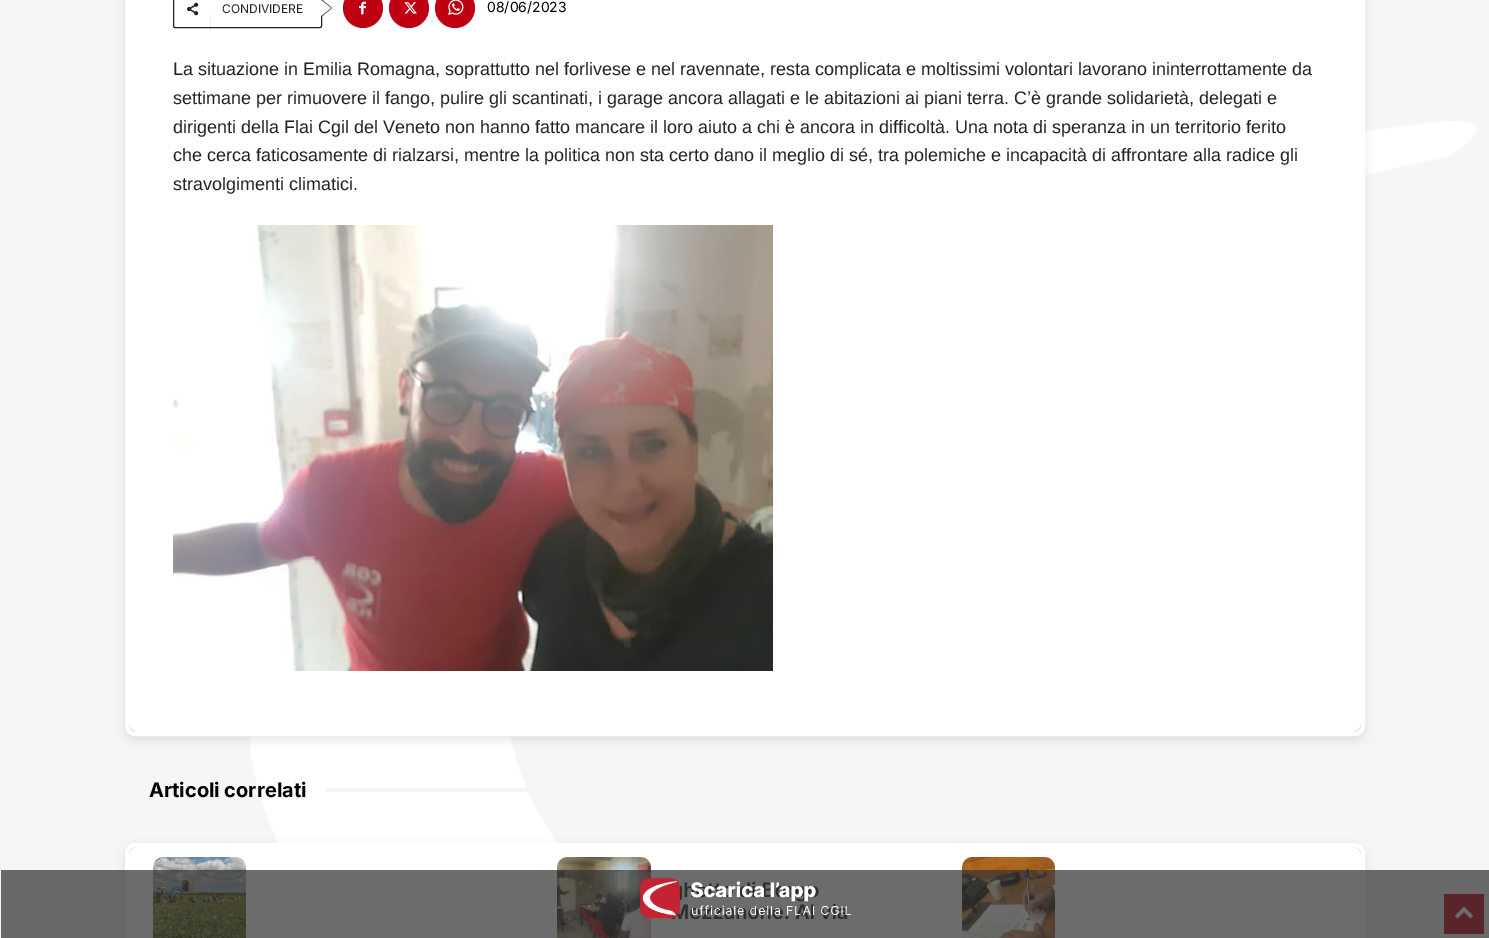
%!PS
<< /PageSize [1489 938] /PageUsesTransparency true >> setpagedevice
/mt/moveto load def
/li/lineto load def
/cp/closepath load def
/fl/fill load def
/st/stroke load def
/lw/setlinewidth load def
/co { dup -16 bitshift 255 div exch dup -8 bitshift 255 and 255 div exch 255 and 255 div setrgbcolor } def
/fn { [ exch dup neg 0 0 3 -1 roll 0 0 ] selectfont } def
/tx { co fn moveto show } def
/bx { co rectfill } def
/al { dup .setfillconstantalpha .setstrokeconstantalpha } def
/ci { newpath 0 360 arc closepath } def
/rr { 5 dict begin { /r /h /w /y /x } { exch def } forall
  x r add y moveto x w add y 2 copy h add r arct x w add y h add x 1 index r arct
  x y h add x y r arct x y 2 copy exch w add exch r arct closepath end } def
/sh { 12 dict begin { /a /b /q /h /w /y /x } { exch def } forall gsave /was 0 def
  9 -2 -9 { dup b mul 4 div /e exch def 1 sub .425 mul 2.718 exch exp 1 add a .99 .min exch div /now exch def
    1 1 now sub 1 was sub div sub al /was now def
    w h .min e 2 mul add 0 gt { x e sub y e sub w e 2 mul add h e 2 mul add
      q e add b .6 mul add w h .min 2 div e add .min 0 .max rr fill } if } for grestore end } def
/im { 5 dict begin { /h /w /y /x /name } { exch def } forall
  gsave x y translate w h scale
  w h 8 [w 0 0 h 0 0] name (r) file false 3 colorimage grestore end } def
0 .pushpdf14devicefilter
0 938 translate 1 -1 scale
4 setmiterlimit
0 0 1489 938 16#F6F6F6 bx
(media/10.raw) 249 121 1228 722 im
16#000000 co
125 -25 1240 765 10 5 .1 sh
16#FFFFFF co
4 lw
127 -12 1236 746 8 rr st
129 -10 1232 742 10 rr fl
16#222222 co
1 lw
173.5 -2.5 148 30 1.5 rr st
321 17 mt 321 -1 li 332 8 li cp fl
(media/1.raw) 187 2 12 14 im
0.08 al
210 15 1 16 16#222222 bx
1 al
16#FFFFFF co
321 16 mt 321 0 li 331 8 li cp fl
16#BF0013 co
363 8 20 ci fl
(media/2.raw) 359 1 7 14 im
409 8 20 ci fl
(media/3.raw) 404 2 13 12 im
455 8 20 ci fl
(media/4.raw) 448 0 16 15 im
(media/5.raw) 173 225 600 446 im
326 788 203 4 16#F5F5F5 bx
16#000000 co
125 847 1240 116 10 5 .1 sh
16#FFFFFF co
4 lw
127 845 1236 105 8 rr st
129 847 1232 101 10 rr fl
(media/6.raw) 153 857 93 81 im
(media/7.raw) 557 857 94 81 im
(media/8.raw) 962 857 93 81 im
1444 894 40 40 16#BF0013 bx
(media/11.raw) 1455 906 18 13 im
0.72 al
1 870 1488 68 16#333333 bx
1 al
(media/9.raw) 640 878 211 41 im
(CONDIVIDERE) 222 13 /Inter-Regular 12 16#222222 tx
(08/06/2023) 487 12 /Inter-Regular 14 16#000000 tx
(La situazione in Emilia Romagna, soprattutto nel forlivese e nel ravennate, resta complicata e moltissimi volontari lavorano ininterrottamente da) 173 75 /LiberationSans-Regular 18 16#222222 tx
(settimane per rimuovere il fango, pulire gli scantinati, i garage ancora allagati e le abitazioni ai piani terra. C’è grande solidarietà, delegati e) 173 104 /LiberationSans-Regular 18 16#222222 tx
(dirigenti della Flai Cgil del Veneto non hanno fatto mancare il loro aiuto a chi è ancora in difficoltà. Una nota di speranza in un territorio ferito) 173 133 /LiberationSans-Regular 18 16#222222 tx
(che cerca faticosamente di rialzarsi, mentre la politica non sta certo dano il meglio di sé, tra polemiche e incapacità di affrontare alla radice gli) 173 161 /LiberationSans-Regular 18 16#222222 tx
(stravolgimenti climatici.) 173 190 /LiberationSans-Regular 18 16#222222 tx
(Articoli correlati) 149 797 /Inter-Bold 20 16#000000 tx
.poppdf14devicefilter showpage
